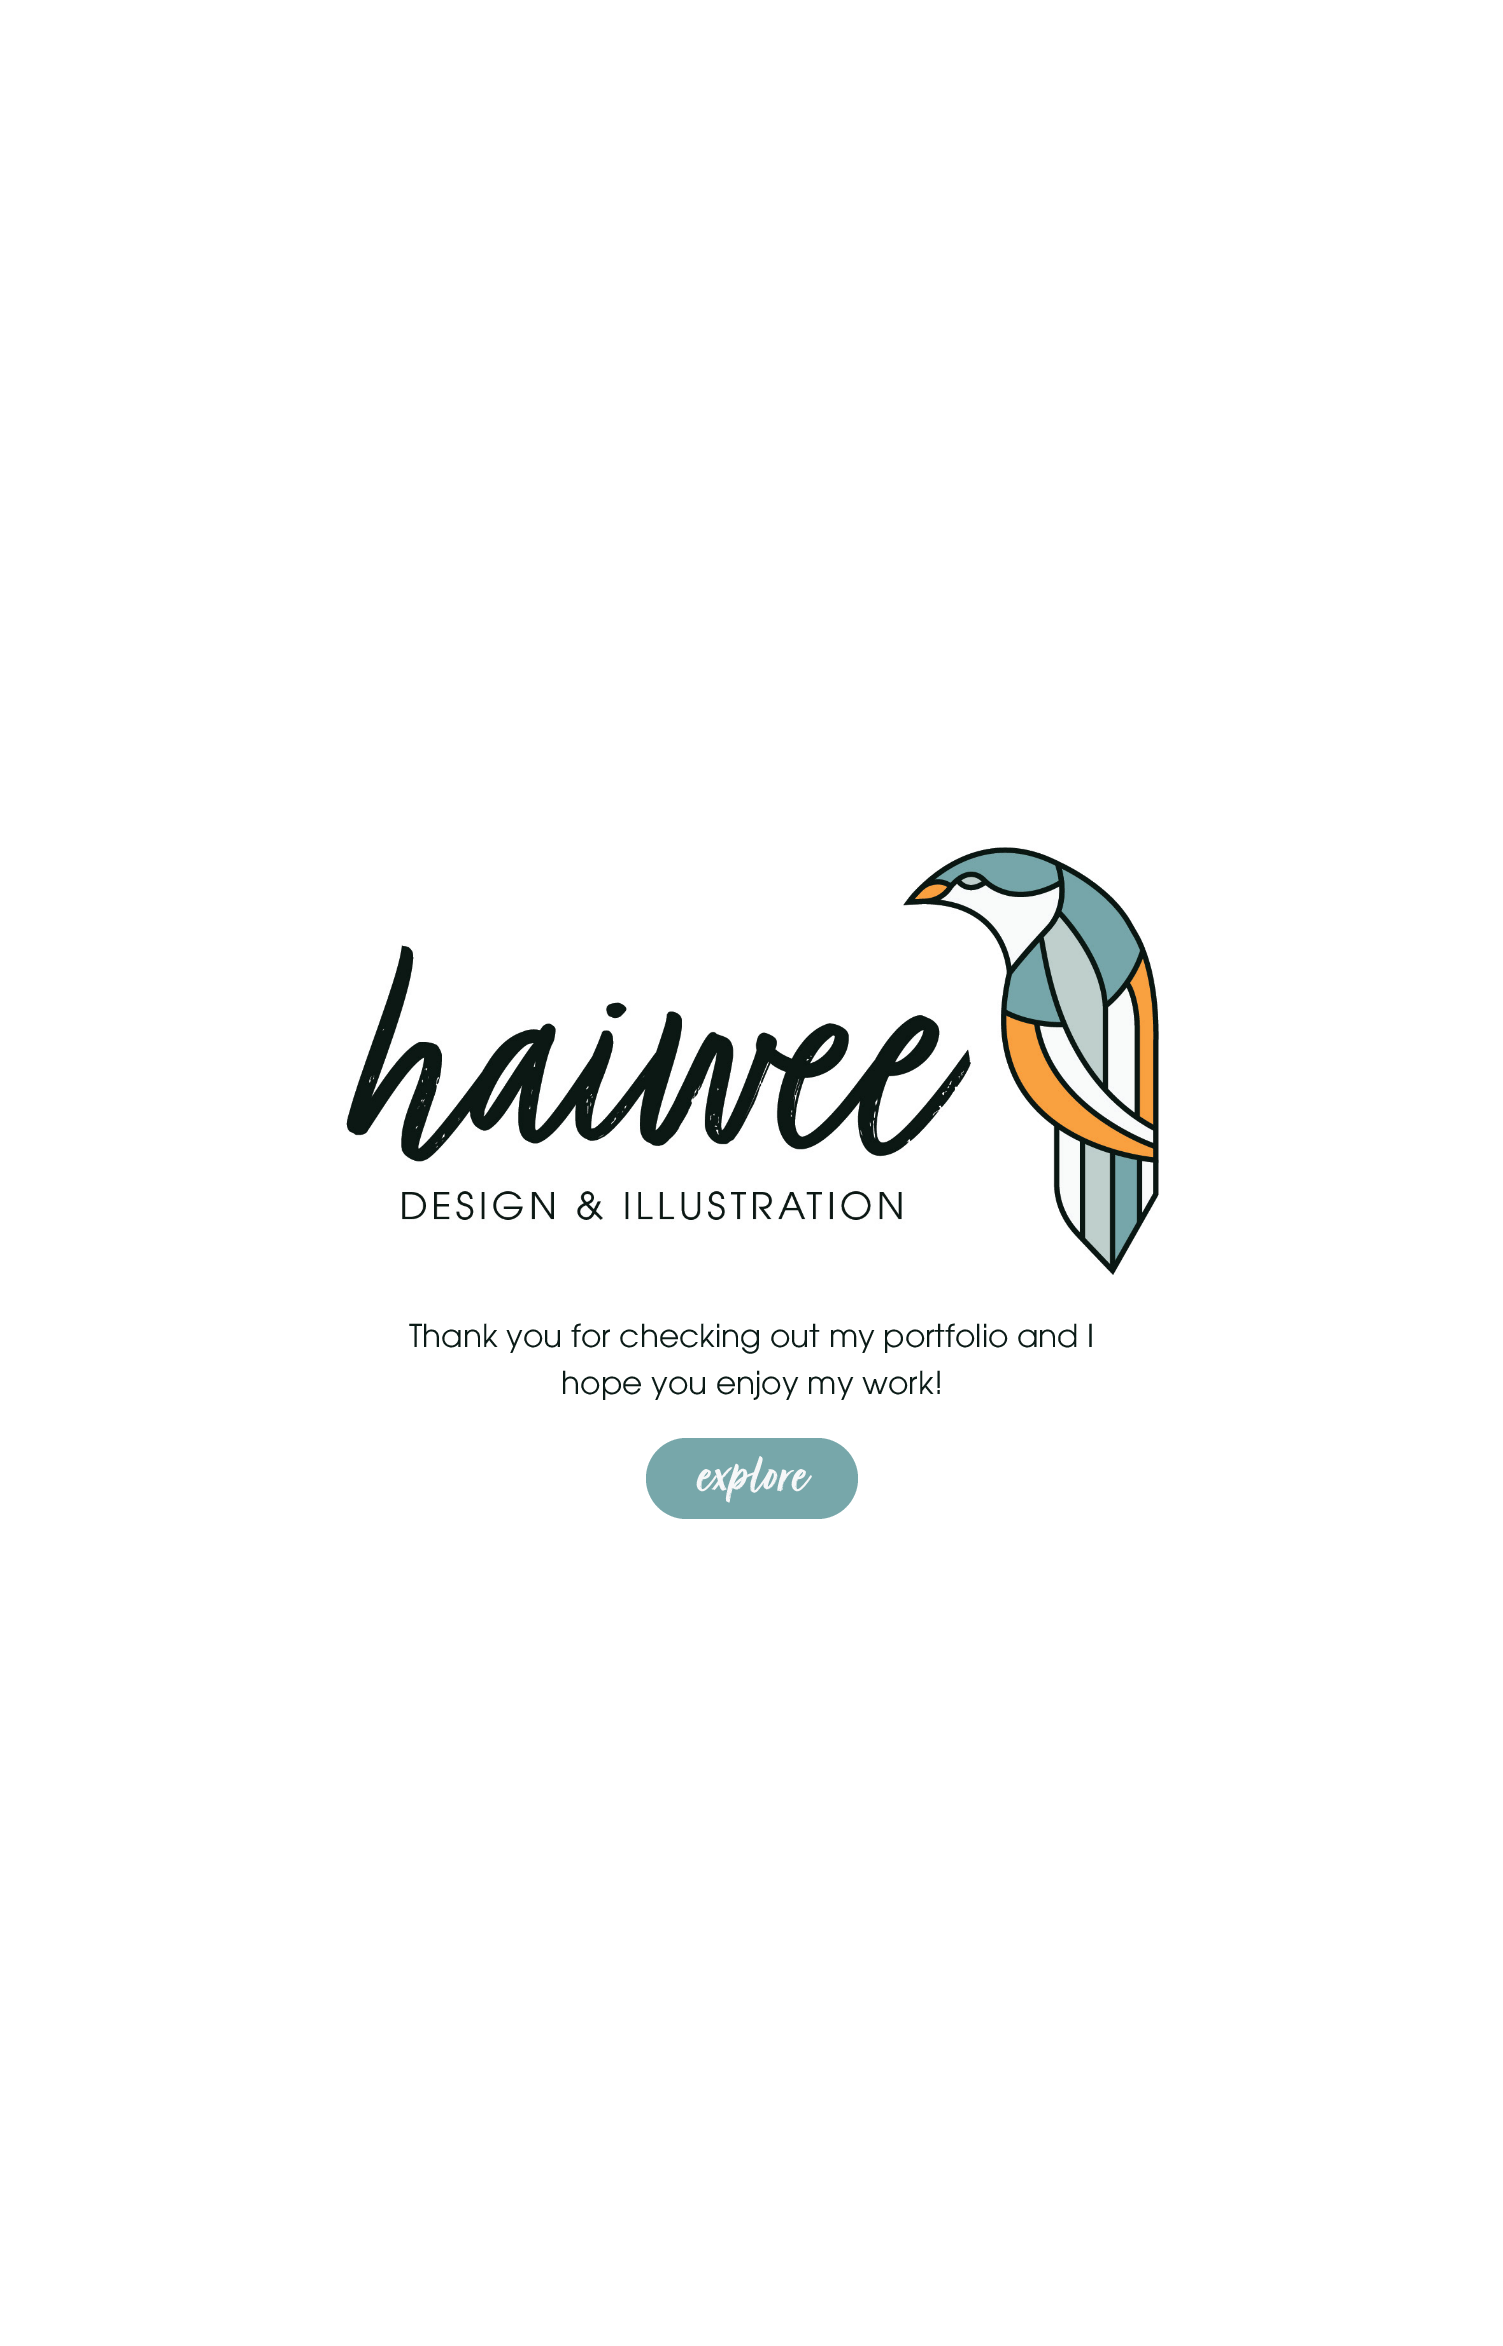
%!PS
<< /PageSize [1503 2346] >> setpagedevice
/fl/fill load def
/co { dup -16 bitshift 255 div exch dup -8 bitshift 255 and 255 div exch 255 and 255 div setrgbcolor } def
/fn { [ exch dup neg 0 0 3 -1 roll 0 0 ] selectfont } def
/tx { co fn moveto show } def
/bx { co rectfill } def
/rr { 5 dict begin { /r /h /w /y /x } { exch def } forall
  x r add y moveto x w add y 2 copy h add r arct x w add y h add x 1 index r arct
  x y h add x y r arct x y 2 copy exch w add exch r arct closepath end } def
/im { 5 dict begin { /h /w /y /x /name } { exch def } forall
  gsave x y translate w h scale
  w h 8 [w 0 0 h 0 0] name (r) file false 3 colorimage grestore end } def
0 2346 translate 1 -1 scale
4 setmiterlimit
0 0 1503 2346 16#FFFFFF bx
(media/1.raw) 345 847 814 428 im
16#77A7AA co
646 1438 212 81 40.5 rr fl
(Thank you for checking out my portfolio and I) 409 1347 /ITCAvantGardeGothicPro-Light 31.25 16#0B1B17 tx
(hope you enjoy my work!) 561 1394 /ITCAvantGardeGothicPro-Light 31.25 16#0B1B17 tx
(explore) 696 1496 /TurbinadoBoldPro-Bold 62 16#F6F7F8 tx
showpage
